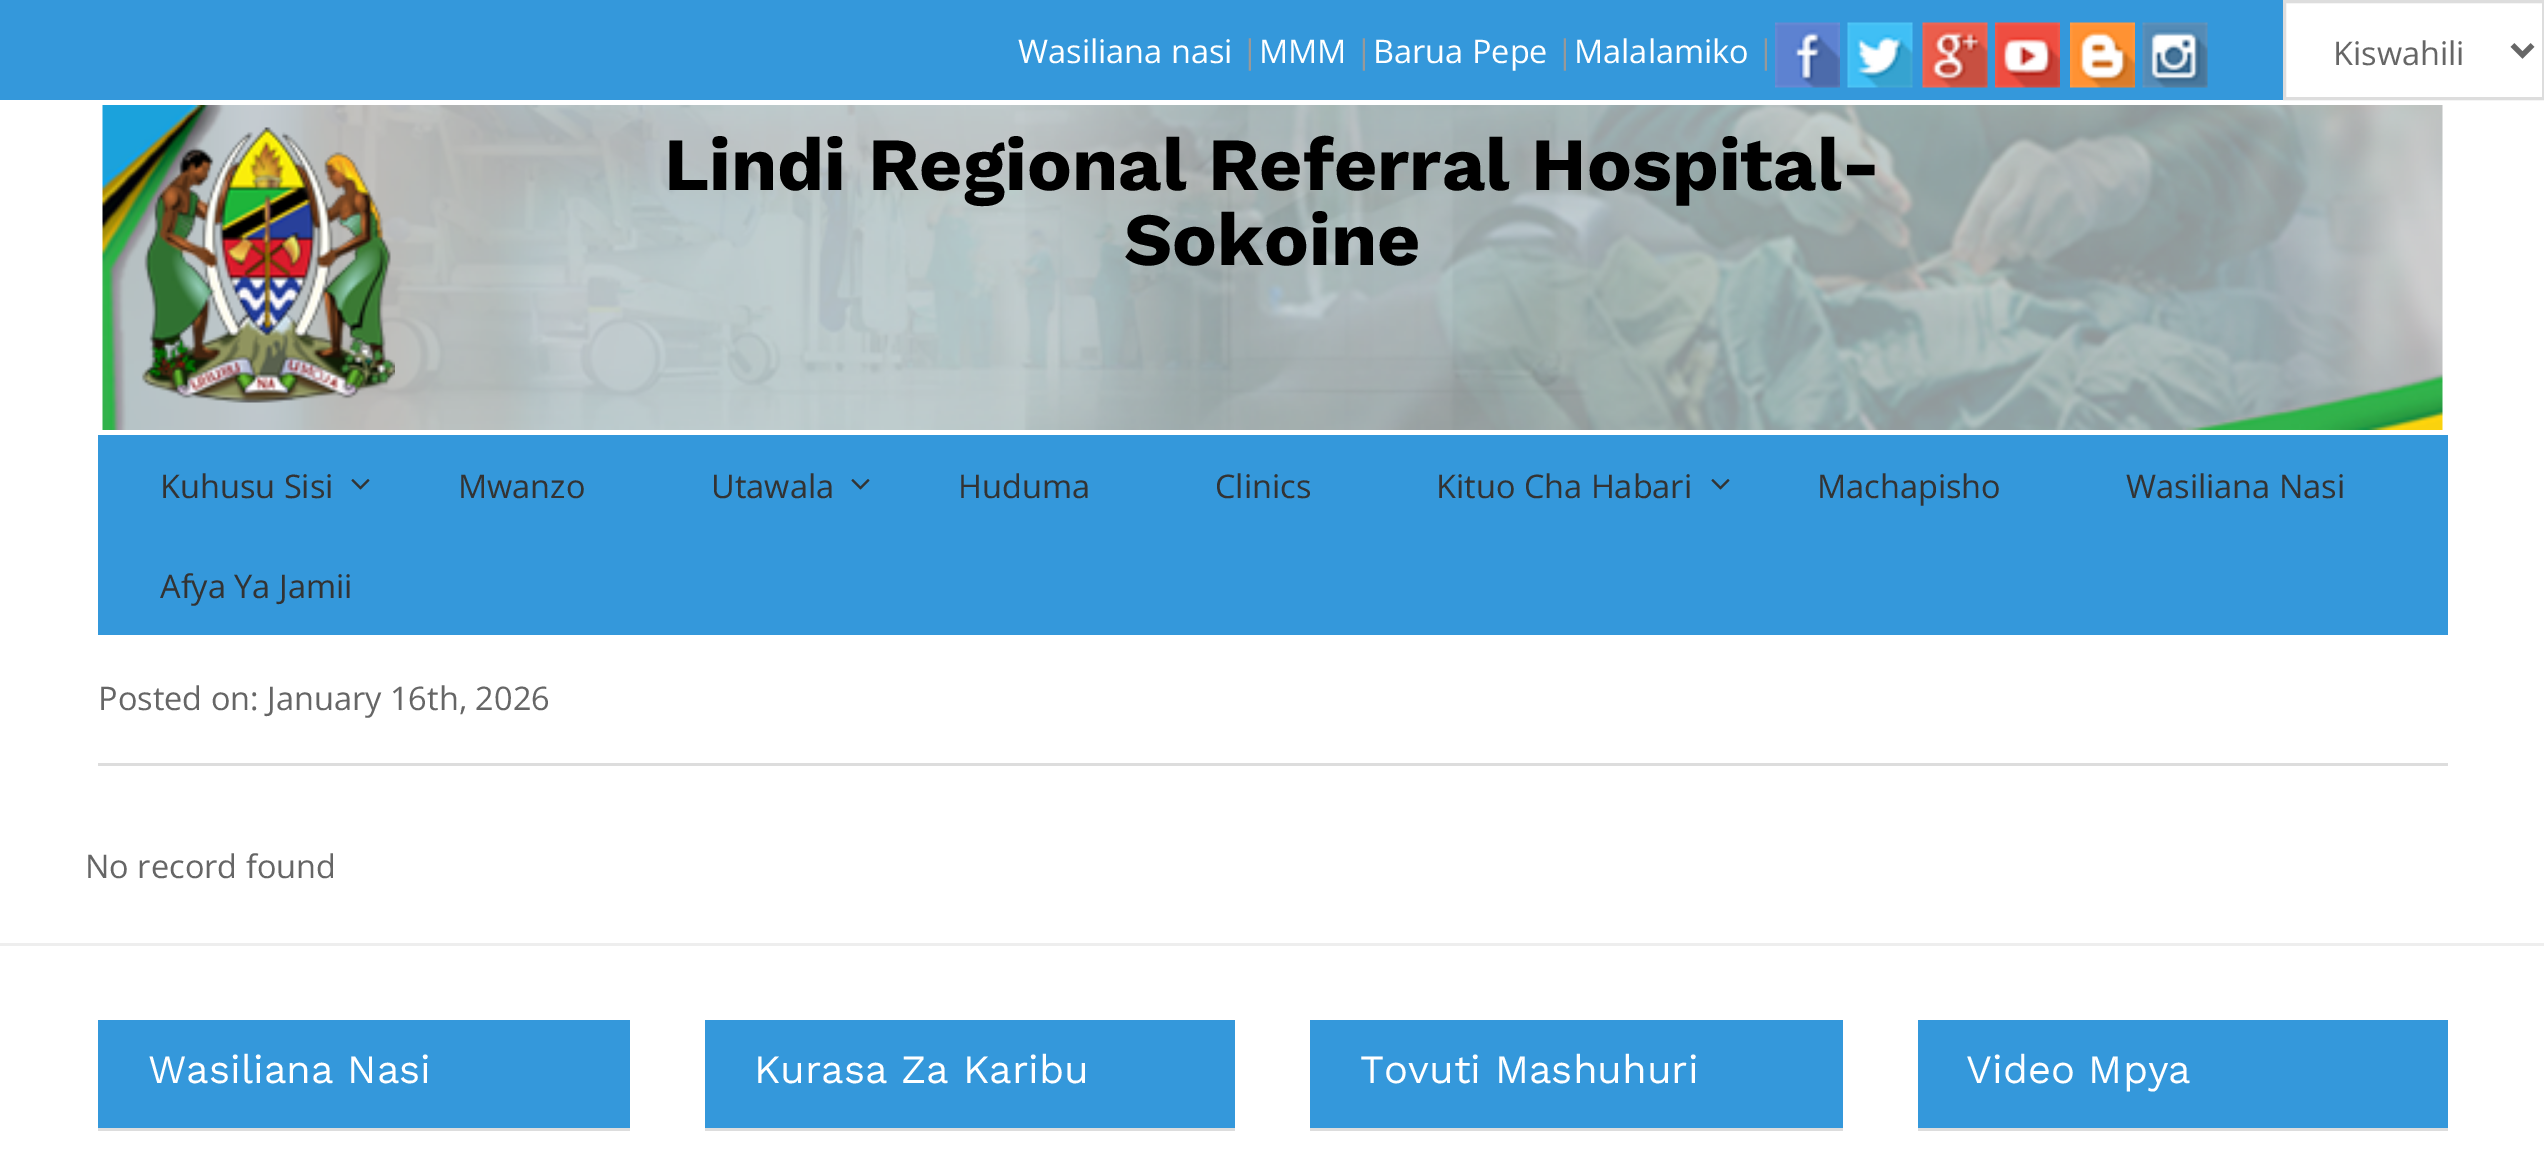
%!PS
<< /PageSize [2544 1172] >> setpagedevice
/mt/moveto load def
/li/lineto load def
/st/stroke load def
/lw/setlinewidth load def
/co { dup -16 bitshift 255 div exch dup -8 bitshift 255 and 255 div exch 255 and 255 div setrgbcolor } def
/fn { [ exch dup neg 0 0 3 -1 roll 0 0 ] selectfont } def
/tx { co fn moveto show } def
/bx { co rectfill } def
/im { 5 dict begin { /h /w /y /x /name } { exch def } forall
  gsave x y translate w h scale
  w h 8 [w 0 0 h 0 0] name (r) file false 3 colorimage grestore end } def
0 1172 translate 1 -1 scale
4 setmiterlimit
0 0 2544 1172 16#FFFFFF bx
0 0 2283 100 16#3498DB bx
(media/1.raw) 1775 22 65 66 im
(media/2.raw) 1847 22 66 66 im
(media/3.raw) 1922 22 66 66 im
(media/4.raw) 1995 22 65 66 im
(media/5.raw) 2070 22 65 66 im
(media/6.raw) 2142 22 66 66 im
16#DDDDDD co
3 lw
2284.5 1.5 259 97 rectstroke
16#666666 co
5 lw
2512.5 45 mt 2522.5 55 li 2532.5 45 li st
(media/7.raw) 102 105 2341 325 im
(media/8.raw) 141 127 254 276 im
98 435 2350 200 16#3498DB bx
(media/9.raw) 351 479 19 11 im
(media/9.raw) 851 479 19 11 im
(media/9.raw) 1711 479 19 11 im
98 763 2350 3 16#DDDDDD bx
0 943 2544 3 16#EEEEEE bx
98 1020 532 108 16#3498DB bx
98 1128 532 3 16#DDDDDD bx
705 1020 530 108 16#3498DB bx
705 1128 530 3 16#DDDDDD bx
1310 1020 533 108 16#3498DB bx
1310 1128 533 3 16#DDDDDD bx
1918 1020 530 108 16#3498DB bx
1918 1128 530 3 16#DDDDDD bx
(Wasiliana nasi) 1018 63 /OpenSans-Regular 32.5 16#FFFFFF tx
(|) 1241 63 /OpenSans-Regular 32.5 16#999999 tx
(MMM) 1259 63 /OpenSans-Regular 32.5 16#FFFFFF tx
(|) 1355 63 /OpenSans-Regular 32.5 16#999999 tx
(Barua Pepe) 1373 63 /OpenSans-Regular 32.5 16#FFFFFF tx
(|) 1556 63 /OpenSans-Regular 32.5 16#999999 tx
(Malalamiko) 1574 63 /OpenSans-Regular 32.5 16#FFFFFF tx
(|) 1757 63 /OpenSans-Regular 32.5 16#999999 tx
(Kiswahili) 2333 65 /OpenSans-Regular 32.5 16#666666 tx
(Lindi Regional Referral Hospital-) 664 190 /WorkSans-Bold 75 16#000000 tx
(Sokoine) 1124 265 /WorkSans-Bold 75 16#000000 tx
(Kuhusu Sisi) 160 498 /OpenSans-Regular 32.5 16#333333 tx
(Mwanzo) 458 498 /OpenSans-Regular 32.5 16#333333 tx
(Utawala) 711 498 /OpenSans-Regular 32.5 16#333333 tx
(Huduma) 958 498 /OpenSans-Regular 32.5 16#333333 tx
(Clinics) 1215 498 /OpenSans-Regular 32.5 16#333333 tx
(Kituo Cha Habari) 1436 498 /OpenSans-Regular 32.5 16#333333 tx
(Machapisho) 1817 498 /OpenSans-Regular 32.5 16#333333 tx
(Wasiliana Nasi) 2126 498 /OpenSans-Regular 32.5 16#333333 tx
(Afya Ya Jamii) 160 598 /OpenSans-Regular 32.5 16#333333 tx
(Posted on: January 16th, 2026) 98 710 /OpenSans-Regular 32.5 16#666666 tx
(No record found) 85 878 /OpenSans-Regular 32.5 16#666666 tx
(Wasiliana Nasi) 148 1083 /WorkSans-Regular 40 16#FFFFFF tx
(Kurasa Za Karibu) 754 1083 /WorkSans-Regular 40 16#FFFFFF tx
(Tovuti Mashuhuri) 1360 1083 /WorkSans-Regular 40 16#FFFFFF tx
(Video Mpya) 1966 1083 /WorkSans-Regular 40 16#FFFFFF tx
showpage
